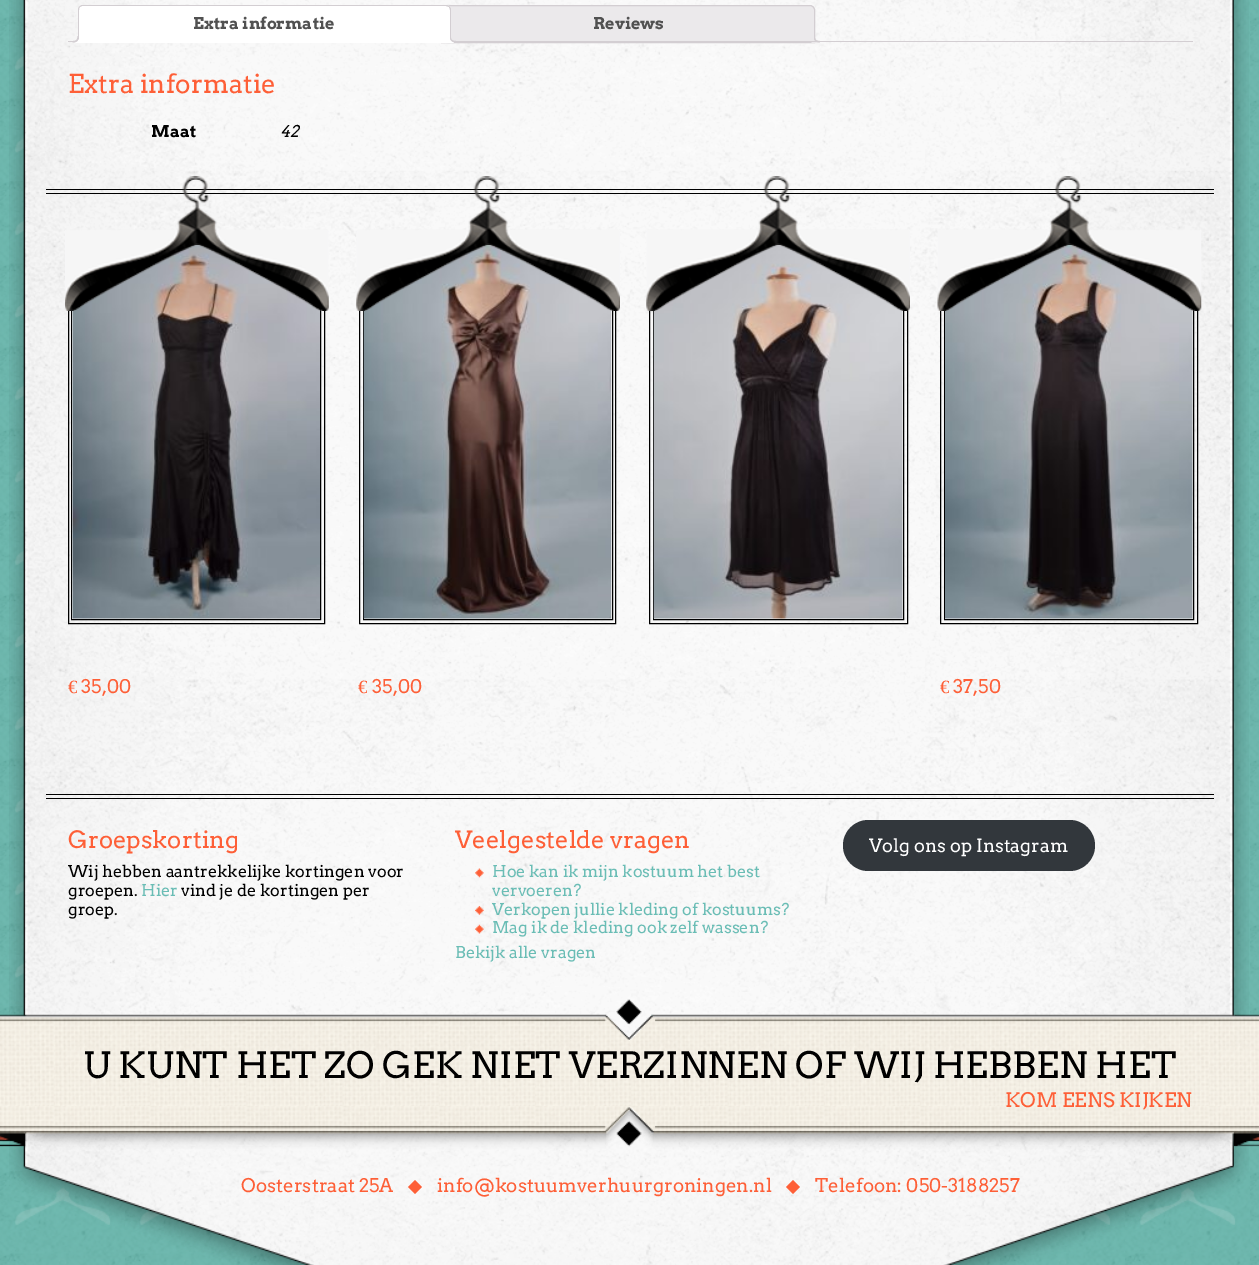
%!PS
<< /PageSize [1259 1265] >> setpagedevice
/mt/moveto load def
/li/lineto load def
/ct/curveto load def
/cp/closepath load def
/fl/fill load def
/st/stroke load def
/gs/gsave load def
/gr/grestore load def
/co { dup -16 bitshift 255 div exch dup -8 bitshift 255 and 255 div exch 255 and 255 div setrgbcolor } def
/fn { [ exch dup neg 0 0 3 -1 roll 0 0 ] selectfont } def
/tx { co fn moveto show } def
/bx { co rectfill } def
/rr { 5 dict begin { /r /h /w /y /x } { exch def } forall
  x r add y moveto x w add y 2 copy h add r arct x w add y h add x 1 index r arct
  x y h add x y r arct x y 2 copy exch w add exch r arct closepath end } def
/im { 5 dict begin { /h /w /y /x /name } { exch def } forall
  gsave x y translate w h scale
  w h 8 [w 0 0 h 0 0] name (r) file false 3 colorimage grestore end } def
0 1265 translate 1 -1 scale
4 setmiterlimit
0 0 1259 1265 16#FFFFFF bx
(media/1.raw) 0 0 1259 1265 im
(media/2.raw) 9 0 1240 1039 im
16#EBE9EB co
446 5.5 mt 810 5.5 li 812.5 5.5 814.5 7.5 814.5 10 ct 814.5 42.5 li 441.5 42.5 li 441.5 10 li 441.5 7.5 443.5 5.5 446 5.5 ct cp gs fl gr
16#D3CED2 co
st
gs
68 5 1125 38 rectclip
16#EBE9EB co
811 39 mt 811 44 813.5 45 818 45 ct 818 42.5 li 816 42 814.5 41 814 39 ct cp fl
gr
814 36 mt 820 36 li 820 42.5 li 817 42.5 814 41 814 37.5 ct cp 815 36 mt 820 36 li 820 41 li 817.5 41 815 40.5 815 37.5 ct cp eofill
68 41 1125 1 16#D3CED2 bx
16#FFFFFF co
83 5 mt 446 5 li 449 5 451 7 451 10 ct 451 43 li 78 43 li 78 10 li 78 7 80 5 83 5 ct cp fl
16#D3CED2 co
82 5 mt 81 5 80 6 79 7 ct 80 7 li 82 6 li 446 6 li 449 7 li 450 7 li 449 6 448 5 446 5 ct cp fl
449.5 6.5 mt 450.5 7.5 451 8.5 451 10 ct 451 42 li 450 41 li 450 10 li 450 9 449.5 8 449 7.5 ct cp fl
16#FFFFFF co
451 42 mt 78 42 li 79 41 li 450 41 li cp fl
16#D3CED2 co
79 6.5 mt 78.5 7.5 78 8.5 78 10 ct 78 42 li 79 41 li 79 10 li 79 9 79 8 80 7 ct cp fl
gs
68 5 1125 38 rectclip
16#FFFFFF co
75 42.5 mt 75 45 li 79 45 81 43 81 39 ct 78.5 39 li 78 40.5 76.5 42 75 42.5 ct cp fl
gr
72.5 36 mt 79 36 li 79 40.5 77 42.5 72.5 42.5 ct cp 72.5 36 mt 77.5 36 li 77.5 40 76 41 72.5 41 ct cp eofill
gs
68 5 1125 38 rectclip
16#FFFFFF co
448 39 mt 448 43 450 45 454 45 ct 454 42.5 li 452 42 451 40.5 450 39 ct cp fl
gr
450 36 mt 456 36 li 456 42.5 li 453 42.5 450 41 450 37.5 ct cp 451 36 mt 456 36 li 456 41 li 454 41 451 40.5 451 37.5 ct cp eofill
46 189 1168 1 16#000000 bx
46 193 1168 1 16#000000 bx
649.5 240.5 258 383 rectstroke
653.5 244.5 250 375 rectstroke
(media/4.raw) 653 244 250 375 im
(media/3.raw) 646 176 264 135 im
68.5 240.5 256 383 rectstroke
71.5 244.5 249 375 rectstroke
(media/6.raw) 72 244 248 375 im
(media/5.raw) 65 176 264 135 im
359.5 240.5 256 383 rectstroke
363.5 244.5 249 375 rectstroke
(media/8.raw) 363 244 249 375 im
(media/7.raw) 356 176 264 135 im
940.5 240.5 257 383 rectstroke
944.5 244.5 249 375 rectstroke
(media/10.raw) 945 244 248 375 im
(media/9.raw) 937 176 265 135 im
46 794 1168 1 16#000000 bx
46 798 1168 1 16#000000 bx
(media/11.raw) 475 868 9 10 im
(media/12.raw) 475 906 9 9 im
(media/13.raw) 475 924 9 10 im
16#32373C co
843 820 252 51 25.5 rr fl
(media/15.raw) 9 1109 1240 156 im
(media/14.raw) 0 999 1259 151 im
16#FE5F37 co
408 1187 mt 415 1180 li 422 1187 li 415 1194 li cp fl
786 1187 mt 793 1180 li 800 1187 li 793 1194 li cp fl
(Extra informatie) 193 29 /Arvo-Bold 16.25 16#515151 tx
(Reviews) 593 29 /Arvo-Bold 16.25 16#515151 tx
(Extra informatie) 68 93 /Arvo-Regular 26 16#FE5F37 tx
(Maat) 151 137 /Arvo-Bold 16.25 16#000000 tx
(42) 280 137 /Arvo-Italic 16.25 16#000000 tx
(€) 68 693 /LiberationSerif-Regular 18.75 16#FE5F37 tx
(35,00) 81 693 /Arvo-Regular 18.75 16#FE5F37 tx
(€) 358 693 /LiberationSerif-Regular 18.75 16#FE5F37 tx
(35,00) 372 693 /Arvo-Regular 18.75 16#FE5F37 tx
(€) 940 693 /LiberationSerif-Regular 18.75 16#FE5F37 tx
(37,50) 953 693 /Arvo-Regular 18.75 16#FE5F37 tx
(Groepskorting) 68 848 /Arvo-Regular 23.75 16#FE5F37 tx
(Wij hebben aantrekkelijke kortingen voor) 68 877 /Arvo-Regular 16.25 16#000000 tx
(groepen.) 68 896 /Arvo-Regular 16.25 16#000000 tx
(Hier) 141 896 /Arvo-Regular 16.25 16#6ABDB5 tx
(vind je de kortingen per) 181 896 /Arvo-Regular 16.25 16#000000 tx
(groep.) 68 915 /Arvo-Regular 16.25 16#000000 tx
(Veelgestelde vragen) 455 848 /Arvo-Regular 23.75 16#FE5F37 tx
(Hoe kan ik mijn kostuum het best) 492 877 /Arvo-Regular 16.25 16#6ABDB5 tx
(vervoeren?) 492 896 /Arvo-Regular 16.25 16#6ABDB5 tx
(Verkopen jullie kleding of kostuums?) 492 915 /Arvo-Regular 16.25 16#6ABDB5 tx
(Mag ik de kleding ook zelf wassen?) 492 933 /Arvo-Regular 16.25 16#6ABDB5 tx
(Bekijk alle vragen) 455 958 /Arvo-Regular 16.25 16#6ABDB5 tx
(Volg ons op Instagram) 869 852 /Arvo-Regular 18.25 16#FFFFFF tx
(U KUNT HET ZO GEK NIET VERZINNEN OF WIJ HEBBEN HET) 83 1078 /Arvo-Regular 36.25 16#000000 tx
(KOM EENS KIJKEN) 1005 1107 /Arvo-Regular 20 16#FE5F37 tx
(Oosterstraat 25A) 241 1192 /Arvo-Regular 18.75 16#FE5F37 tx
(info@kostuumverhuurgroningen.nl) 437 1192 /Arvo-Regular 18.75 16#FE5F37 tx
(Telefoon: 050-3188257) 815 1192 /Arvo-Regular 18.75 16#FE5F37 tx
showpage
